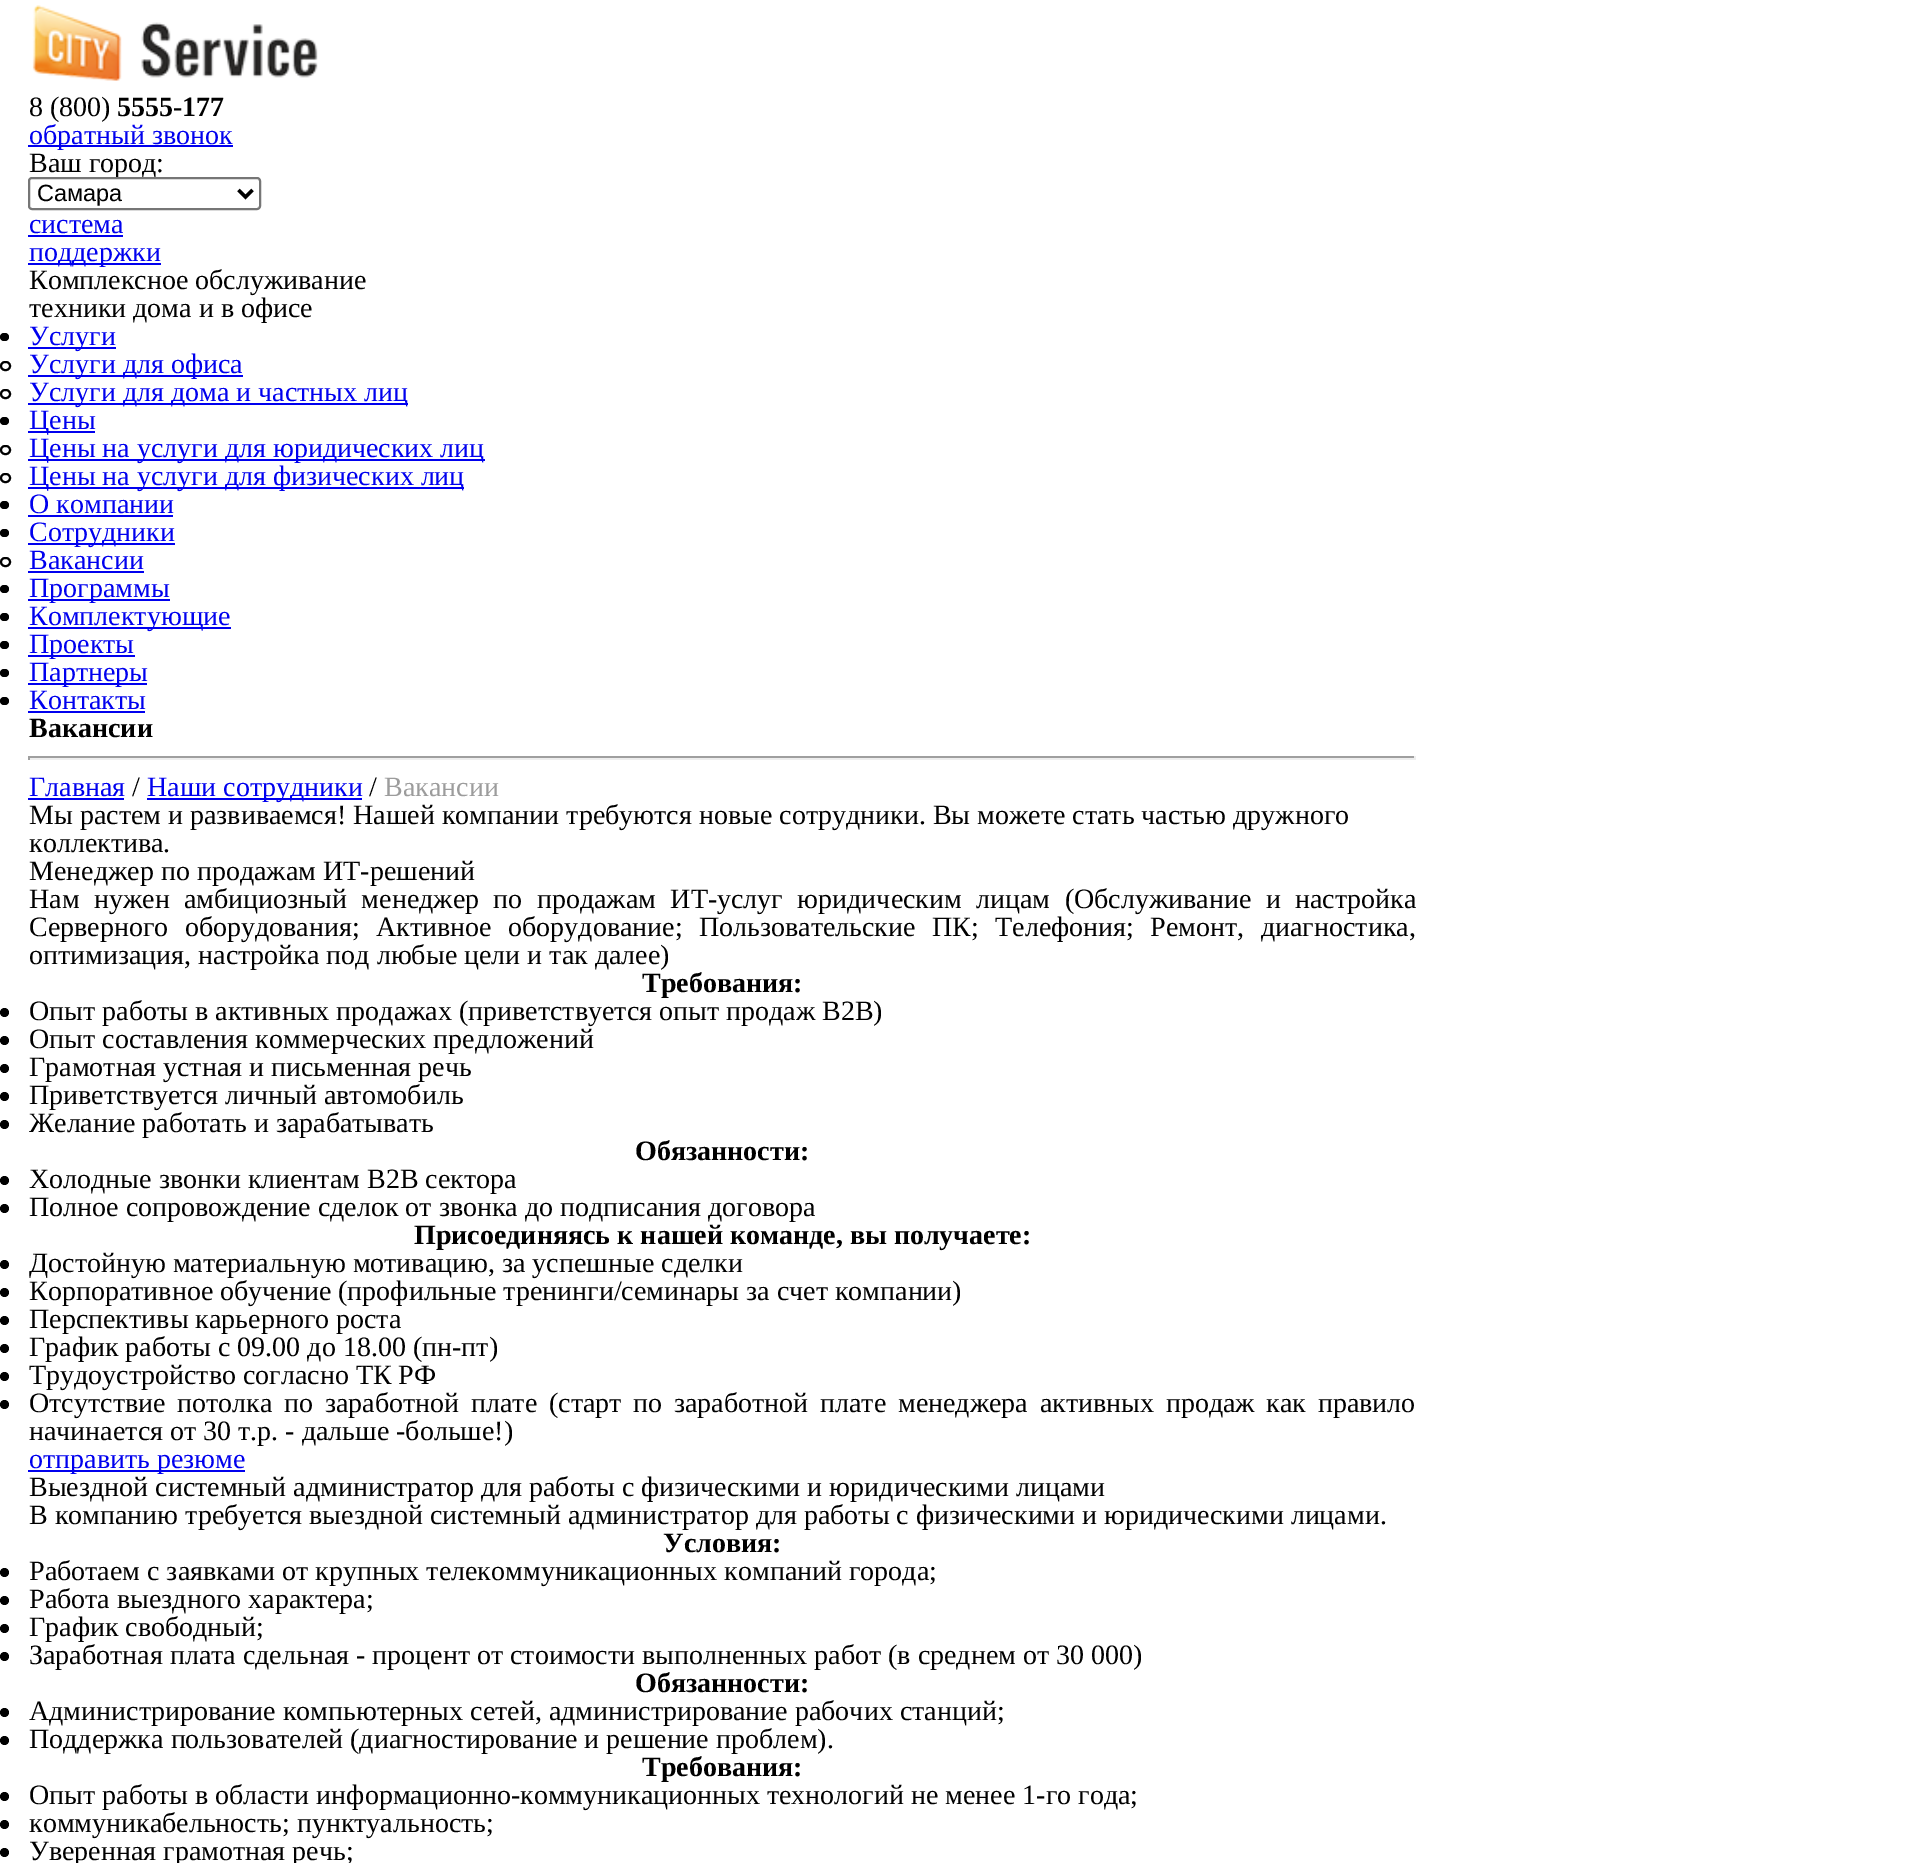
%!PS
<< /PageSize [1919 1863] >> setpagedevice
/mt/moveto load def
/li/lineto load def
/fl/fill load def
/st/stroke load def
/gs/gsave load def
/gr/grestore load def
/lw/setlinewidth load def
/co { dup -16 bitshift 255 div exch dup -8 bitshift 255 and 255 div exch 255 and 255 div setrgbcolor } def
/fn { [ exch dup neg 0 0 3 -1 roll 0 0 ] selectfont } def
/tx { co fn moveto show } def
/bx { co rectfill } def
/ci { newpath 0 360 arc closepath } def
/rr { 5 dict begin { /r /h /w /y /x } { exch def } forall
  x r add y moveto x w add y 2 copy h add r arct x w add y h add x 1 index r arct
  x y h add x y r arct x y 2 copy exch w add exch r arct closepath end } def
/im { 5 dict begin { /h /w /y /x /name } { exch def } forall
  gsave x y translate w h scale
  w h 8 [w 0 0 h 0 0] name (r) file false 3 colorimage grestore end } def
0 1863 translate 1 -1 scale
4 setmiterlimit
0 0 1919 1863 16#FFFFFF bx
(media/1.raw) 32 5 286 76 im
28 145 205 2 16#0000EE bx
28 235 95 2 16#0000EE bx
28 263 133 2 16#0000EE bx
16#000000 co
0 333 9 8 4 rr fl
28 347 88 2 16#0000EE bx
16#000000 co
2 lw
1 362 9 8 4 rr st
28 375 215 2 16#0000EE bx
16#000000 co
1 390 9 8 4 rr st
28 403 380 2 16#0000EE bx
16#000000 co
0 417 9 8 4 rr fl
28 431 67 2 16#0000EE bx
16#000000 co
1 446 9 8 4 rr st
28 459 457 2 16#0000EE bx
16#000000 co
1 474 9 8 4 rr st
28 487 436 2 16#0000EE bx
16#000000 co
0 501 9 8 4 rr fl
28 515 145 2 16#0000EE bx
16#000000 co
0 529 9 8 4 rr fl
28 543 147 2 16#0000EE bx
16#000000 co
1 558 9 8 4 rr st
28 571 116 2 16#0000EE bx
16#000000 co
0 585 9 8 4 rr fl
28 599 142 2 16#0000EE bx
16#000000 co
0 613 9 8 4 rr fl
28 627 203 2 16#0000EE bx
16#000000 co
0 641 9 8 4 rr fl
28 655 107 2 16#0000EE bx
16#000000 co
0 669 9 8 4 rr fl
28 683 119 2 16#0000EE bx
16#000000 co
0 697 9 8 4 rr fl
28 711 117 2 16#0000EE bx
28 756 1388 2 16#9F9F9F bx
1414 756 2 4 16#EEEEEE bx
28 758 1388 2 16#EEEEEE bx
28 756 2 4 16#9F9F9F bx
28 798 96 2 16#0000EE bx
147 798 215 2 16#0000EE bx
16#000000 co
4.5 1012.5 4.5 ci fl
4.5 1040.5 4.5 ci fl
4.5 1068.5 4.5 ci fl
4.5 1096.5 4.5 ci fl
4.5 1124.5 4.5 ci fl
4.5 1180.5 4.5 ci fl
4.5 1208.5 4.5 ci fl
4.5 1264.5 4.5 ci fl
4.5 1292.5 4.5 ci fl
4.5 1320.5 4.5 ci fl
4.5 1348.5 4.5 ci fl
4.5 1376.5 4.5 ci fl
4.5 1404.5 4.5 ci fl
28 1470 217 2 16#0000EE bx
16#000000 co
4.5 1572.5 4.5 ci fl
4.5 1600.5 4.5 ci fl
4.5 1628.5 4.5 ci fl
4.5 1656.5 4.5 ci fl
4.5 1712.5 4.5 ci fl
4.5 1740.5 4.5 ci fl
4.5 1796.5 4.5 ci fl
4.5 1824.5 4.5 ci fl
4.5 1852.5 4.5 ci fl
(8 \(800\)) 29 116 /LiberationSerif-Regular 28 16#000000 tx
(5555-177) 117 116 /LiberationSerif-Bold 28 16#000000 tx
(обратный звонок) 29 144 /LiberationSerif-Regular 28 16#0000EE tx
(Ваш город:) 29 172 /LiberationSerif-Regular 28 16#000000 tx
16#FFFFFF co
29 178 231 31 3 rr gs fl gr
16#767676 co
st
16#000000 co
3.5 lw
238.5 190 mt 245.5 197 li 252.5 190 li st
(Самара) 37 201 /LiberationSans-Regular 23.5 16#000000 tx
(система) 29 233 /LiberationSerif-Regular 28 16#0000EE tx
(поддержки) 29 261 /LiberationSerif-Regular 28 16#0000EE tx
(Комплексное обслуживание) 29 289 /LiberationSerif-Regular 28 16#000000 tx
(техники дома и в офисе) 29 317 /LiberationSerif-Regular 28 16#000000 tx
(Услуги) 29 345 /LiberationSerif-Regular 28 16#0000EE tx
(Услуги для офиса) 29 373 /LiberationSerif-Regular 28 16#0000EE tx
(Услуги для дома и частных лиц) 29 401 /LiberationSerif-Regular 28 16#0000EE tx
(Цены) 29 429 /LiberationSerif-Regular 28 16#0000EE tx
(Цены на услуги для юридических лиц) 29 457 /LiberationSerif-Regular 28 16#0000EE tx
(Цены на услуги для физических лиц) 29 485 /LiberationSerif-Regular 28 16#0000EE tx
(О компании) 29 513 /LiberationSerif-Regular 28 16#0000EE tx
(Сотрудники) 29 541 /LiberationSerif-Regular 28 16#0000EE tx
(Вакансии) 29 569 /LiberationSerif-Regular 28 16#0000EE tx
(Программы) 29 597 /LiberationSerif-Regular 28 16#0000EE tx
(Комплектующие) 29 625 /LiberationSerif-Regular 28 16#0000EE tx
(Проекты) 29 653 /LiberationSerif-Regular 28 16#0000EE tx
(Партнеры) 29 681 /LiberationSerif-Regular 28 16#0000EE tx
(Контакты) 29 709 /LiberationSerif-Regular 28 16#0000EE tx
(Вакансии) 29 737 /LiberationSerif-Bold 28 16#000000 tx
(Главная) 29 796 /LiberationSerif-Regular 28 16#0000EE tx
(/) 132 796 /LiberationSerif-Regular 28 16#000000 tx
(Наши сотрудники) 147 796 /LiberationSerif-Regular 28 16#0000EE tx
(/) 369 796 /LiberationSerif-Regular 28 16#000000 tx
(Вакансии) 384 796 /LiberationSerif-Regular 28 16#9C9C9C tx
(Мы растем и развиваемся! Нашей компании требуются новые сотрудники. Вы можете стать частью дружного) 29 824 /LiberationSerif-Regular 28 16#000000 tx
(коллектива.) 29 852 /LiberationSerif-Regular 28 16#000000 tx
(Менеджер по продажам ИТ-решений) 29 880 /LiberationSerif-Regular 28 16#000000 tx
29 908 mt 7.4 0 32 (Нам нужен амбициозный менеджер по продажам ИТ-услуг юридическим лицам \(Обслуживание и настройка) widthshow
29 936 mt 9.5 0 32 (Серверного оборудования; Активное оборудование; Пользовательские ПК; Телефония; Ремонт, диагностика,) widthshow
(оптимизация, настройка под любые цели и так далее\)) 29 964 /LiberationSerif-Regular 28 16#000000 tx
(Требования:) 642 992 /LiberationSerif-Bold 28 16#000000 tx
(Опыт работы в активных продажах \(приветствуется опыт продаж B2B\)) 29 1020 /LiberationSerif-Regular 28 16#000000 tx
(Опыт составления коммерческих предложений) 29 1048 /LiberationSerif-Regular 28 16#000000 tx
(Грамотная устная и письменная речь) 29 1076 /LiberationSerif-Regular 28 16#000000 tx
(Приветствуется личный автомобиль) 29 1104 /LiberationSerif-Regular 28 16#000000 tx
(Желание работать и зарабатывать) 29 1132 /LiberationSerif-Regular 28 16#000000 tx
(Обязанности:) 635 1160 /LiberationSerif-Bold 28 16#000000 tx
(Холодные звонки клиентам B2B сектора) 29 1188 /LiberationSerif-Regular 28 16#000000 tx
(Полное сопровождение сделок от звонка до подписания договора) 29 1216 /LiberationSerif-Regular 28 16#000000 tx
(Присоединяясь к нашей команде, вы получаете:) 414 1244 /LiberationSerif-Bold 28 16#000000 tx
(Достойную материальную мотивацию, за успешные сделки) 29 1272 /LiberationSerif-Regular 28 16#000000 tx
(Корпоративное обучение \(профильные тренинги/семинары за счет компании\)) 29 1300 /LiberationSerif-Regular 28 16#000000 tx
(Перспективы карьерного роста) 29 1328 /LiberationSerif-Regular 28 16#000000 tx
(График работы с 09.00 до 18.00 \(пн-пт\)) 29 1356 /LiberationSerif-Regular 28 16#000000 tx
(Трудоустройство согласно ТК РФ) 29 1384 /LiberationSerif-Regular 28 16#000000 tx
29 1412 mt 4.75 0 32 (Отсутствие потолка по заработной плате \(старт по заработной плате менеджера активных продаж как правило) widthshow
(начинается от 30 т.р. - дальше -больше!\)) 29 1440 /LiberationSerif-Regular 28 16#000000 tx
(отправить резюме) 29 1468 /LiberationSerif-Regular 28 16#0000EE tx
(Выездной системный администратор для работы с физическими и юридическими лицами) 29 1496 /LiberationSerif-Regular 28 16#000000 tx
(В компанию требуется выездной системный администратор для работы с физическими и юридическими лицами.) 29 1524 /LiberationSerif-Regular 28 16#000000 tx
(Условия:) 663 1552 /LiberationSerif-Bold 28 16#000000 tx
(Работаем с заявками от крупных телекоммуникационных компаний города;) 29 1580 /LiberationSerif-Regular 28 16#000000 tx
(Работа выездного характера;) 29 1608 /LiberationSerif-Regular 28 16#000000 tx
(График свободный;) 29 1636 /LiberationSerif-Regular 28 16#000000 tx
(Заработная плата сдельная - процент от стоимости выполненных работ \(в среднем от 30 000\)) 29 1664 /LiberationSerif-Regular 28 16#000000 tx
(Обязанности:) 635 1692 /LiberationSerif-Bold 28 16#000000 tx
(Администрирование компьютерных сетей, администрирование рабочих станций;) 29 1720 /LiberationSerif-Regular 28 16#000000 tx
(Поддержка пользователей \(диагностирование и решение проблем\).) 29 1748 /LiberationSerif-Regular 28 16#000000 tx
(Требования:) 642 1776 /LiberationSerif-Bold 28 16#000000 tx
(Опыт работы в области информационно-коммуникационных технологий не менее 1-го года;) 29 1804 /LiberationSerif-Regular 28 16#000000 tx
(коммуникабельность; пунктуальность;) 29 1832 /LiberationSerif-Regular 28 16#000000 tx
(Уверенная грамотная речь;) 29 1860 /LiberationSerif-Regular 28 16#000000 tx
showpage
